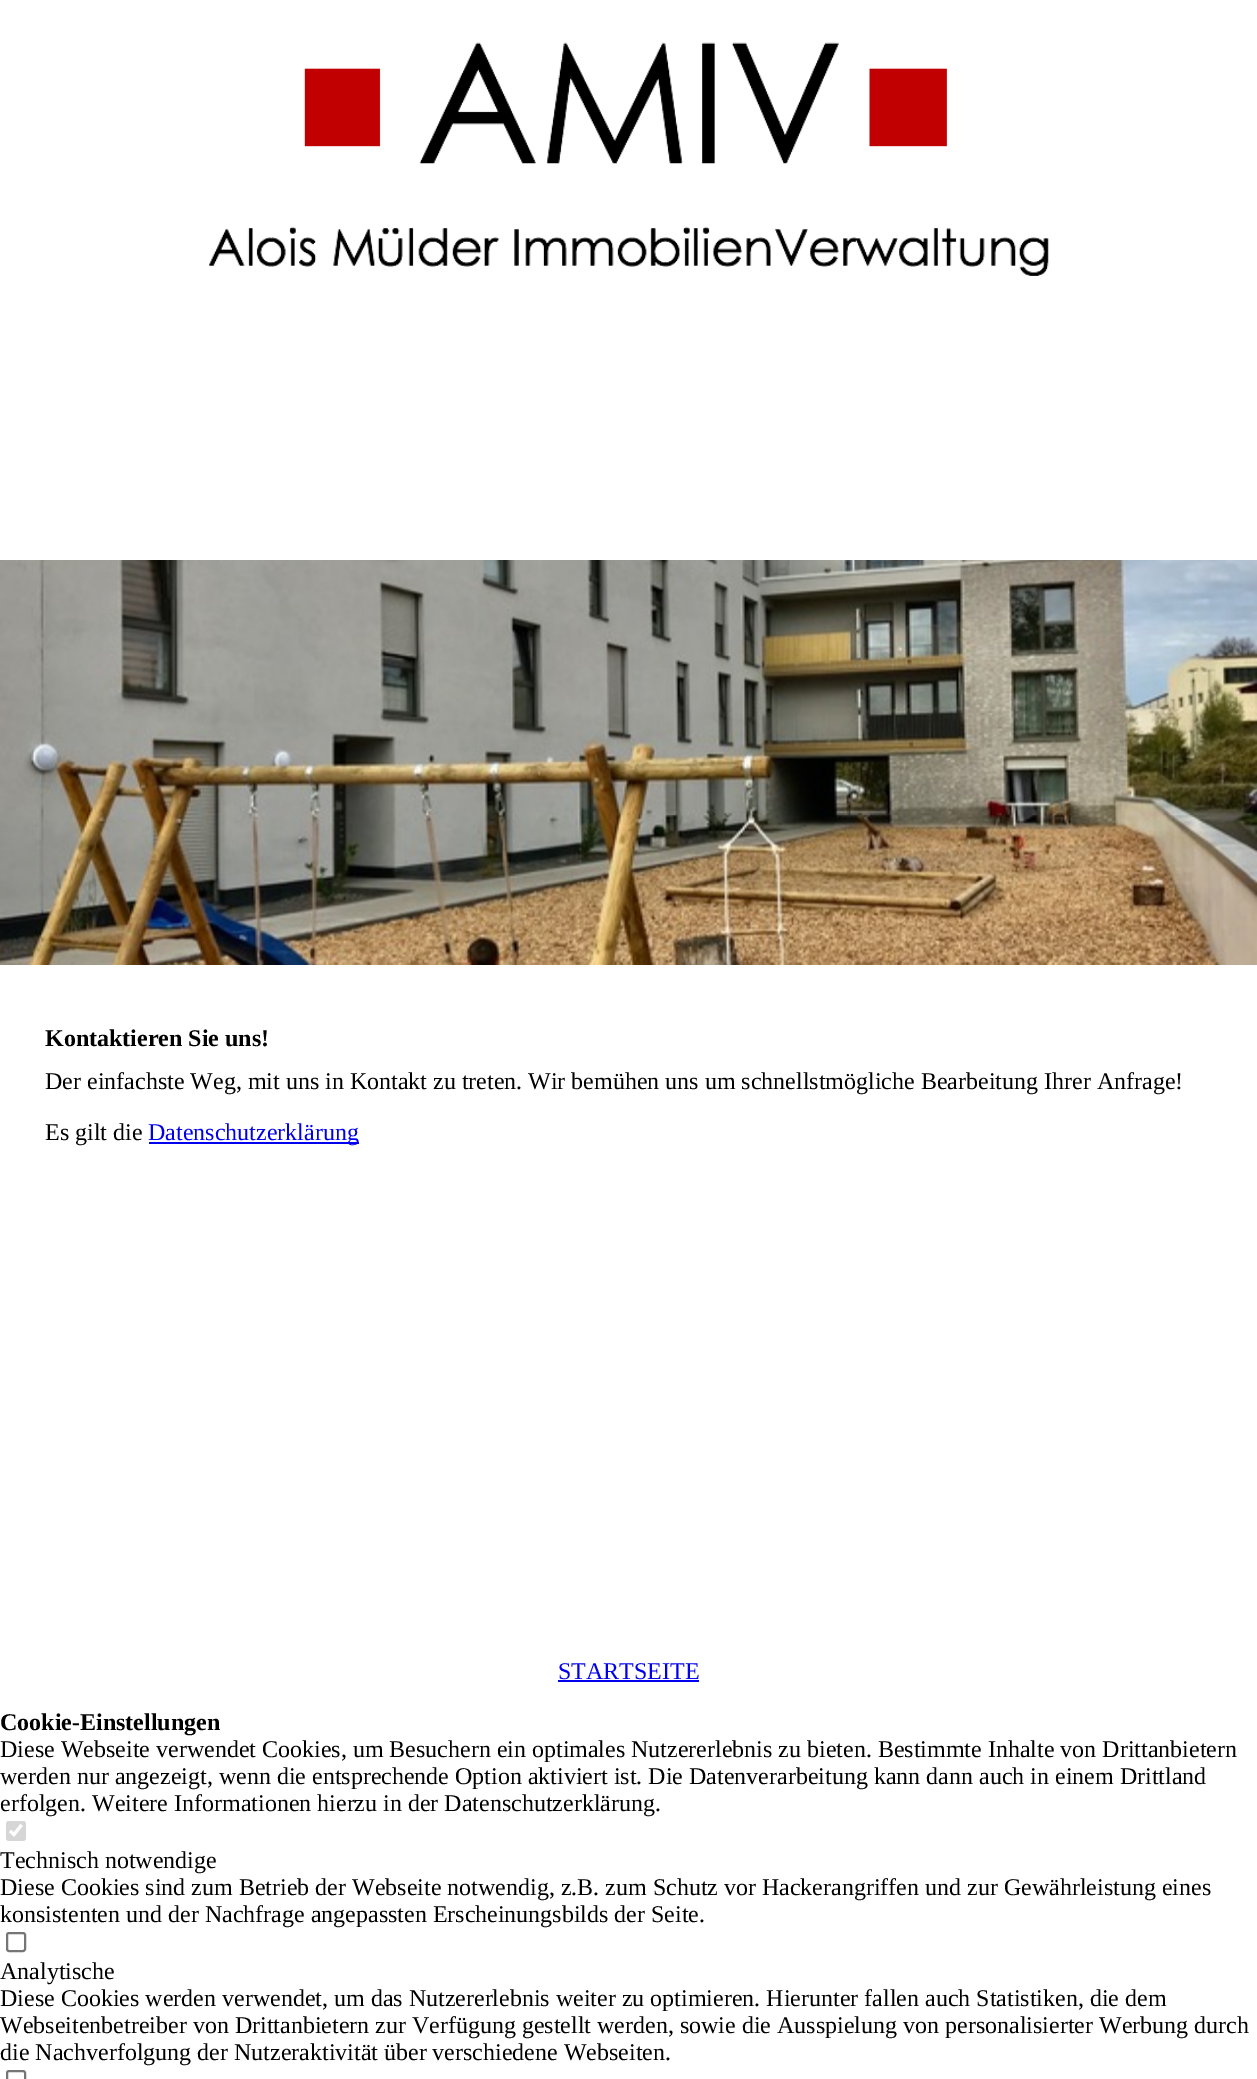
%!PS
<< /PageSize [1257 2079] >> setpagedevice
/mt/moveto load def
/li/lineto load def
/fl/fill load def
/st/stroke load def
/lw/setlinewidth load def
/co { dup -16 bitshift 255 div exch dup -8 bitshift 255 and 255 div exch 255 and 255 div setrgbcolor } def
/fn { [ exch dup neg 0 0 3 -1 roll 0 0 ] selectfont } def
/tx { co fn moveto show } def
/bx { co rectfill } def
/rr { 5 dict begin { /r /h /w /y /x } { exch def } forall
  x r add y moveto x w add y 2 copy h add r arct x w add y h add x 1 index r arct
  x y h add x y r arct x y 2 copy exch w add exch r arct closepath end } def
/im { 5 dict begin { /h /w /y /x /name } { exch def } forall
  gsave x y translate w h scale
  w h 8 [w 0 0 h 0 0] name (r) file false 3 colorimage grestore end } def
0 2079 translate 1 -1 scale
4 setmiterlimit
0 0 1257 2079 16#FFFFFF bx
(media/1.raw) 209 42 840 234 im
(media/2.raw) 0 560 1257 405 im
149 1142 210 2 16#0000EE bx
558 1680 141 2 16#0000EE bx
16#D6D6D6 co
6 1821 20 20 3 rr fl
16#FFFFFF co
3.1 lw
10 1831 mt 14 1834.5 li 21.5 1825 li st
16#767676 co
2 lw
7 1933 18 18 2 rr st
7 2071 18 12 2 rr st
(Kontaktieren Sie uns!) 45 1046 /LiberationSerif-Bold 24 16#000000 tx
(Der einfachste Weg, mit uns in Kontakt zu treten. Wir bemühen uns um schnellstmögliche Bearbeitung Ihrer Anfrage!) 45 1089 /LiberationSerif-Regular 24 16#000000 tx
(Es gilt die) 45 1140 /LiberationSerif-Regular 24 16#000000 tx
(Datenschutzerklärung) 148 1140 /LiberationSerif-Regular 24 16#0000EE tx
(STARTSEITE) 558 1679 /LiberationSerif-Regular 24 16#0000EE tx
(Cookie-Einstellungen) 0 1730 /LiberationSerif-Bold 24 16#000000 tx
(Diese Webseite verwendet Cookies, um Besuchern ein optimales Nutzererlebnis zu bieten. Bestimmte Inhalte von Drittanbietern) 0 1757 /LiberationSerif-Regular 24 16#000000 tx
(werden nur angezeigt, wenn die entsprechende Option aktiviert ist. Die Datenverarbeitung kann dann auch in einem Drittland) 0 1784 /LiberationSerif-Regular 24 16#000000 tx
(erfolgen. Weitere Informationen hierzu in der Datenschutzerklärung.) 0 1811 /LiberationSerif-Regular 24 16#000000 tx
(Technisch notwendige) 0 1868 /LiberationSerif-Regular 24 16#000000 tx
(Diese Cookies sind zum Betrieb der Webseite notwendig, z.B. zum Schutz vor Hackerangriffen und zur Gewährleistung eines) 0 1895 /LiberationSerif-Regular 24 16#000000 tx
(konsistenten und der Nachfrage angepassten Erscheinungsbilds der Seite.) 0 1922 /LiberationSerif-Regular 24 16#000000 tx
(Analytische) 0 1979 /LiberationSerif-Regular 24 16#000000 tx
(Diese Cookies werden verwendet, um das Nutzererlebnis weiter zu optimieren. Hierunter fallen auch Statistiken, die dem) 0 2006 /LiberationSerif-Regular 24 16#000000 tx
(Webseitenbetreiber von Drittanbietern zur Verfügung gestellt werden, sowie die Ausspielung von personalisierter Werbung durch) 0 2033 /LiberationSerif-Regular 24 16#000000 tx
(die Nachverfolgung der Nutzeraktivität über verschiedene Webseiten.) 0 2060 /LiberationSerif-Regular 24 16#000000 tx
showpage
